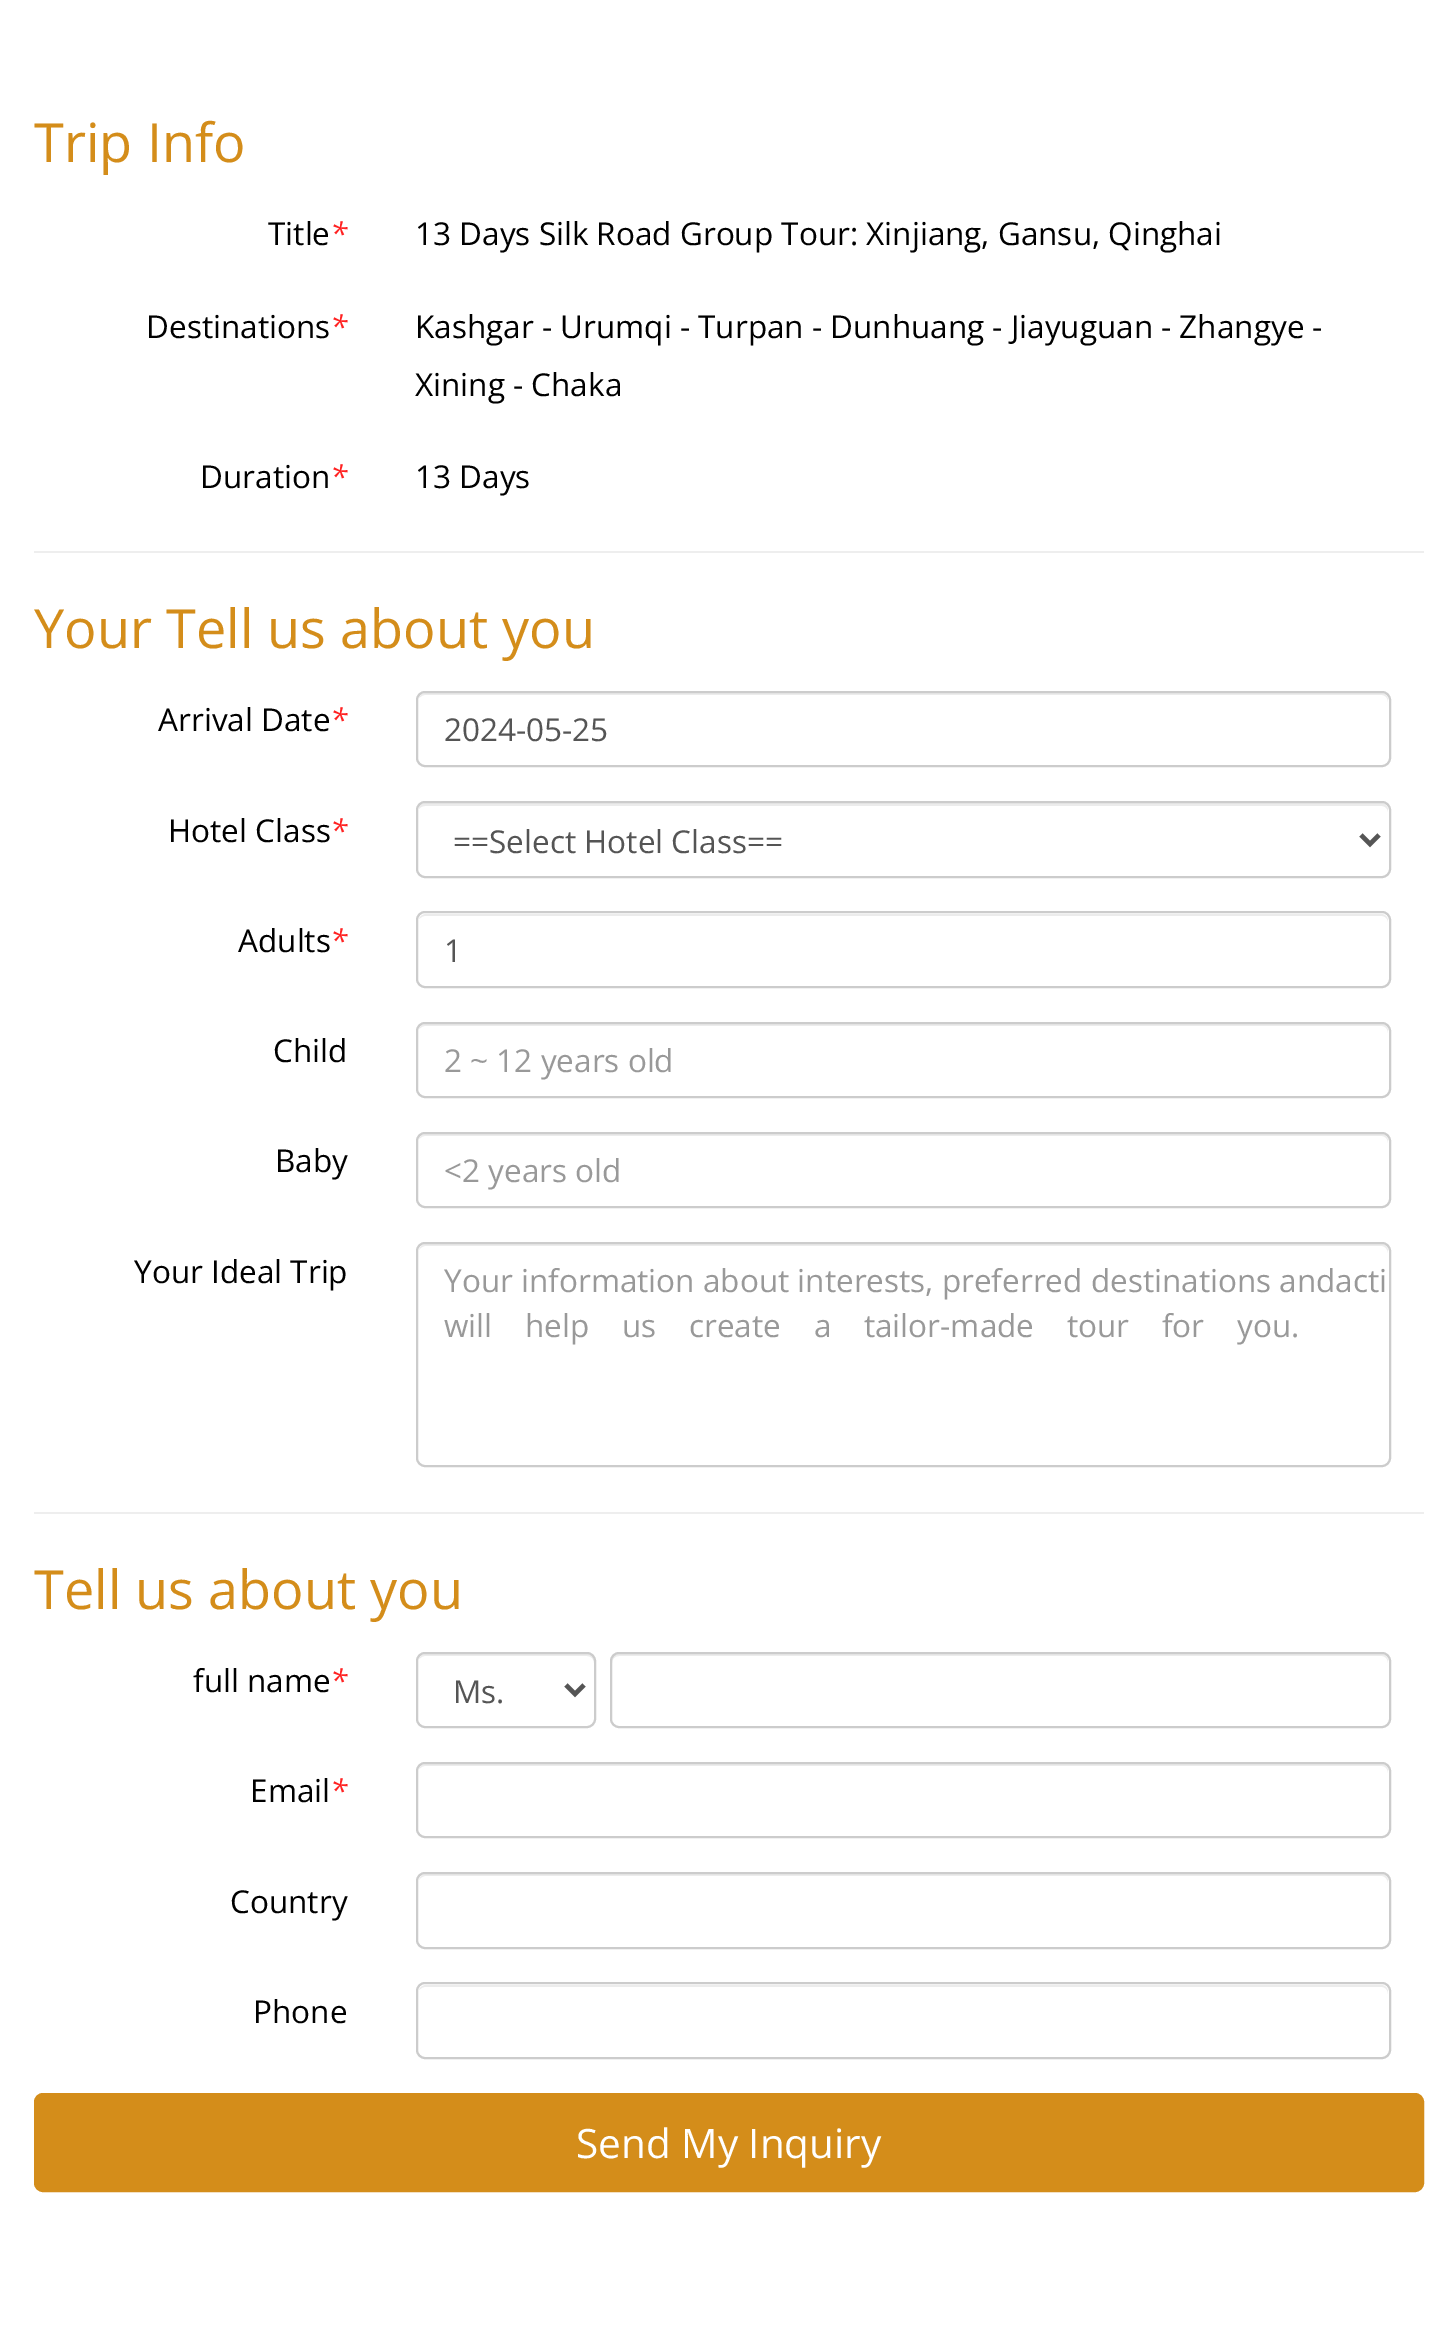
%!PS
<< /PageSize [1456 2342] >> setpagedevice
/mt/moveto load def
/li/lineto load def
/ct/curveto load def
/cp/closepath load def
/fl/fill load def
/st/stroke load def
/gs/gsave load def
/gr/grestore load def
/lw/setlinewidth load def
/co { dup -16 bitshift 255 div exch dup -8 bitshift 255 and 255 div exch 255 and 255 div setrgbcolor } def
/fn { [ exch dup neg 0 0 3 -1 roll 0 0 ] selectfont } def
/tx { co fn moveto show } def
/bx { co rectfill } def
/rr { 5 dict begin { /r /h /w /y /x } { exch def } forall
  x r add y moveto x w add y 2 copy h add r arct x w add y h add x 1 index r arct
  x y h add x y r arct x y 2 copy exch w add exch r arct closepath end } def
0 2342 translate 1 -1 scale
4 setmiterlimit
0 0 1456 2342 16#FFFFFF bx
34 551 1390 2 16#EEEEEE bx
16#ECECEC co
425 695 mt 1382 695 li 1385 695 1388 698 1388 702 ct 1388 700 li 1388 696 1385 693 1381 693 ct 426 693 li 423 693 420 695 419 698 ct 421 696 423 695 425 695 ct cp fl
16#CCCCCC co
2 lw
417 692 973 74 8 rr st
16#ECECEC co
425 806 mt 1382 806 li 1385 806 1388 809 1388 812 ct 1388 810 li 1388 806 1385 803 1381 803 ct 426 803 li 422 803 419 806 419 809 ct 420 807 423 806 425 806 ct cp fl
16#CCCCCC co
417 802 973 75 8 rr st
16#555555 co
4.5 lw
1361 835 mt 1370 844 li 1379 835 li st
16#ECECEC co
425 916 mt 1382 916 li 1385 916 1388 919 1388 922 ct 1388 921 li 1388 917 1385 914 1381 914 ct 426 914 li 423 914 420 916 419 919 ct 421 917 423 916 425 916 ct cp fl
16#CCCCCC co
2 lw
417 912 973 75 8 rr st
16#ECECEC co
425 1026 mt 1382 1026 li 1385 1026 1388 1029 1388 1033 ct 1388 1031 li 1388 1027 1385 1024 1381 1024 ct 426 1024 li 423 1024 420 1026 419 1029 ct 421 1027 423 1026 425 1026 ct cp fl
16#CCCCCC co
417 1023 973 74 8 rr st
16#ECECEC co
425 1136 mt 1382 1136 li 1385 1136 1388 1139 1388 1143 ct 1388 1141 li 1388 1137 1385 1134 1381 1134 ct 426 1134 li 423 1134 420 1136 419 1139 ct 421 1137 423 1136 425 1136 ct cp fl
16#CCCCCC co
417 1133 973 74 8 rr st
16#ECECEC co
425 1246 mt 1382 1246 li 1385 1246 1388 1250 1388 1253 ct 1388 1251 li 1388 1247 1385 1244 1381 1244 ct 426 1244 li 422 1244 420 1247 419 1250 ct 420 1248 423 1246 425 1246 ct cp fl
16#CCCCCC co
417 1243 973 223 8 rr st
34 1512 1390 2 16#EEEEEE bx
16#ECECEC co
425 1656 mt 587 1656 li 591 1656 594 1659 594 1663 ct 594 1661 li 594 1657 591 1654 587 1654 ct 426 1654 li 423 1654 420 1656 419 1659 ct 421 1657 423 1656 425 1656 ct cp fl
16#CCCCCC co
417 1653 178 74 8 rr st
16#555555 co
4.5 lw
566 1685 mt 575 1694 li 584 1685 li st
16#ECECEC co
619 1656 mt 1382 1656 li 1385 1656 1388 1659 1388 1663 ct 1388 1661 li 1388 1657 1385 1654 1381 1654 ct 619 1654 li 615 1654 612 1657 612 1661 ct 612 1663 li 612 1659 615 1656 619 1656 ct cp fl
16#CCCCCC co
2 lw
611 1653 779 74 8 rr st
16#ECECEC co
425 1766 mt 1382 1766 li 1385 1766 1388 1769 1388 1773 ct 1388 1771 li 1388 1767 1385 1764 1381 1764 ct 426 1764 li 423 1764 420 1766 419 1769 ct 421 1767 423 1766 425 1766 ct cp fl
16#CCCCCC co
417 1763 973 74 8 rr st
16#ECECEC co
425 1876 mt 1382 1876 li 1385 1876 1388 1880 1388 1883 ct 1388 1881 li 1388 1877 1385 1874 1381 1874 ct 426 1874 li 422 1874 420 1877 419 1880 ct 420 1878 423 1876 425 1876 ct cp fl
16#CCCCCC co
417 1873 973 75 8 rr st
16#ECECEC co
425 1987 mt 1382 1987 li 1385 1987 1388 1990 1388 1994 ct 1388 1992 li 1388 1988 1385 1985 1381 1985 ct 426 1985 li 423 1985 420 1987 419 1990 ct 421 1988 423 1987 425 1987 ct cp fl
16#CCCCCC co
417 1983 973 75 8 rr st
16#D48D1A co
35 2094 1388 97 8 rr gs fl gr
st
(Trip Info) 34 162 /OpenSans-Regular 54 16#D48D1A tx
(Title) 268 245 /OpenSans-Regular 31.5 16#000000 tx
(*) 330 245 /OpenSans-Italic 31.5 16#FF2222 tx
(13 Days Silk Road Group Tour: Xinjiang, Gansu, Qinghai) 415 245 /OpenSans-Regular 31.5 16#000000 tx
(Destinations) 146 338 /OpenSans-Regular 31.5 16#000000 tx
(*) 330 338 /OpenSans-Italic 31.5 16#FF2222 tx
(Kashgar - Urumqi - Turpan - Dunhuang - Jiayuguan - Zhangye -) 415 338 /OpenSans-Regular 31.5 16#000000 tx
(Xining - Chaka) 415 396 /OpenSans-Regular 31.5 16#000000 tx
(Duration) 200 488 /OpenSans-Regular 31.5 16#000000 tx
(*) 330 488 /OpenSans-Italic 31.5 16#FF2222 tx
(13 Days) 415 488 /OpenSans-Regular 31.5 16#000000 tx
(Your Tell us about you) 34 648 /OpenSans-Regular 54 16#D48D1A tx
(Arrival Date) 158 731 /OpenSans-Regular 31.5 16#000000 tx
(*) 330 731 /OpenSans-Italic 31.5 16#FF2222 tx
(2024-05-25) 444 741 /OpenSans-Regular 31.5 16#555555 tx
(Hotel Class) 168 842 /OpenSans-Regular 31.5 16#000000 tx
(*) 330 842 /OpenSans-Italic 31.5 16#FF2222 tx
(==Select Hotel Class==) 453 853 /OpenSans-Regular 31.5 16#555555 tx
(Adults) 238 952 /OpenSans-Regular 31.5 16#000000 tx
(*) 330 952 /OpenSans-Italic 31.5 16#FF2222 tx
(1) 444 962 /OpenSans-Regular 31.5 16#555555 tx
(Child) 273 1062 /OpenSans-Regular 31.5 16#000000 tx
(2 ~ 12 years old) 444 1072 /OpenSans-Regular 31.5 16#999999 tx
(Baby) 275 1172 /OpenSans-Regular 31.5 16#000000 tx
(<2 years old) 444 1182 /OpenSans-Regular 31.5 16#999999 tx
(Your Ideal Trip) 134 1283 /OpenSans-Regular 31.5 16#000000 tx
(Your information about interests, preferred destinations andacti) 444 1292 /OpenSans-Regular 31.5 16#999999 tx
444 1337 mt 24.5 0 32 (will help us create a tailor-made tour for you.) widthshow
(Tell us about you) 34 1609 /OpenSans-Regular 54 16#D48D1A tx
(full name) 193 1692 /OpenSans-Regular 31.5 16#000000 tx
(*) 330 1692 /OpenSans-Italic 31.5 16#FF2222 tx
(Ms.) 453 1703 /OpenSans-Regular 31.5 16#555555 tx
(Email) 250 1802 /OpenSans-Regular 31.5 16#000000 tx
(*) 330 1802 /OpenSans-Italic 31.5 16#FF2222 tx
(Country) 230 1913 /OpenSans-Regular 31.5 16#000000 tx
(Phone) 253 2023 /OpenSans-Regular 31.5 16#000000 tx
(Send My Inquiry) 576 2158 /OpenSans-Regular 40.5 16#FFFFFF tx
showpage
